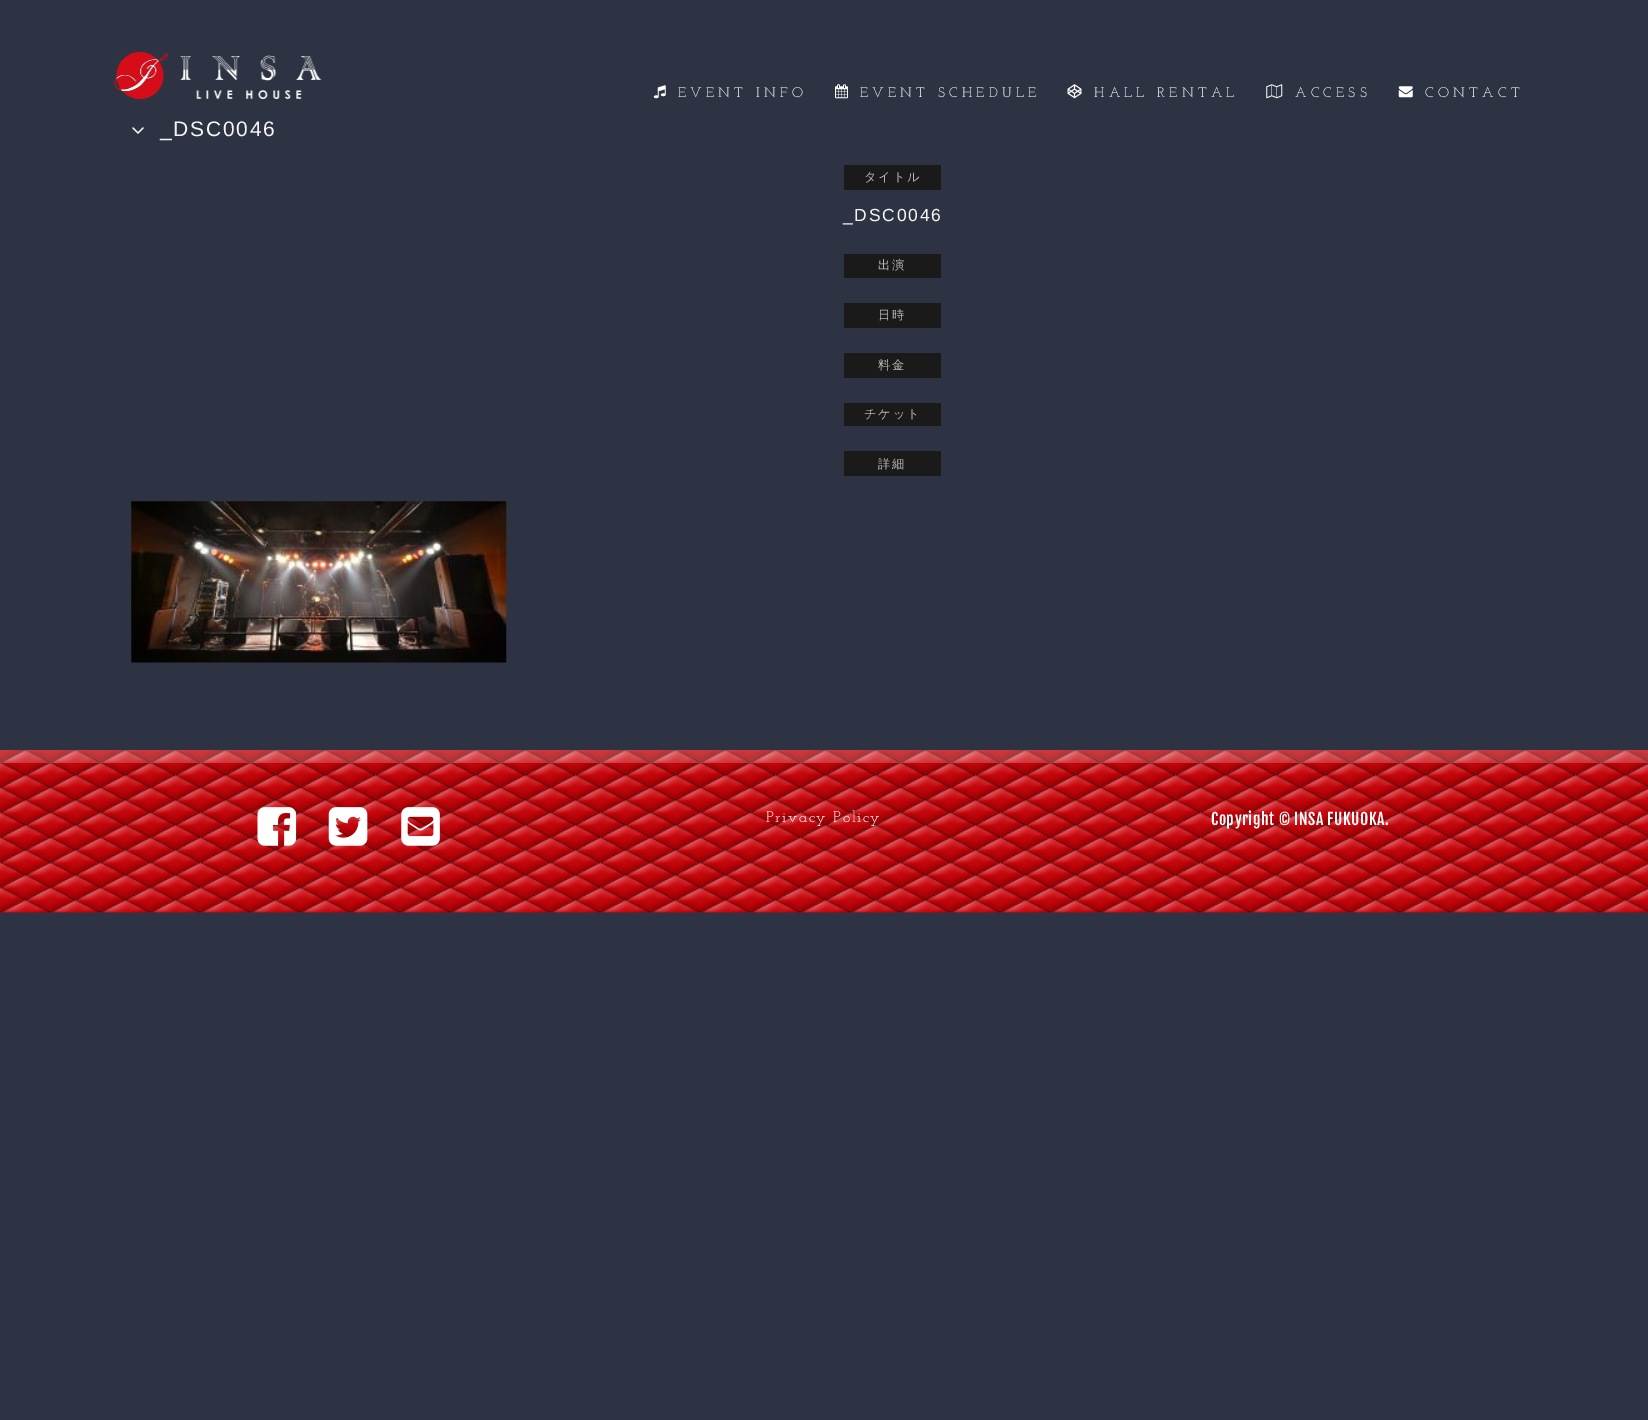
%!PS
<< /PageSize [1648 1420] /PageUsesTransparency true >> setpagedevice
/mt/moveto load def
/co { dup -16 bitshift 255 div exch dup -8 bitshift 255 and 255 div exch 255 and 255 div setrgbcolor } def
/fn { [ exch dup neg 0 0 3 -1 roll 0 0 ] selectfont } def
/bx { co rectfill } def
/al { dup .setfillconstantalpha .setstrokeconstantalpha } def
/im { 5 dict begin { /h /w /y /x /name } { exch def } forall
  gsave x y translate w h scale
  w h 8 [w 0 0 h 0 0] name (r) file false 3 colorimage grestore end } def
0 .pushpdf14devicefilter
0 1420 translate 1 -1 scale
4 setmiterlimit
0 0 1648 1420 16#2E3343 bx
(media/1.raw) 114 52 208 47 im
(media/2.raw) 653 85 13 14 im
(media/3.raw) 835 84 13 15 im
(media/4.raw) 1067 84 15 15 im
(media/5.raw) 1266 84 17 15 im
(media/6.raw) 1398 86 15 12 im
(media/7.raw) 132 127 12 7 im
844 165 97 25 16#1A1A1A bx
844 254 97 24 16#1A1A1A bx
844 303 97 25 16#1A1A1A bx
844 353 97 25 16#1A1A1A bx
844 403 97 23 16#1A1A1A bx
844 451 97 25 16#1A1A1A bx
(media/8.raw) 131 501 376 162 im
(media/9.raw) 0 750 1648 163 im
0.2 al
0 750 1648 13 16#FFFFFF bx
1 al
(media/10.raw) 257 807 40 39 im
(media/11.raw) 328 807 40 39 im
(media/12.raw) 401 807 39 39 im
/JosefinSlab-Thin 14 fn
678 97 mt 4.25 0 (EVENT INFO) ashow
860 97 mt 4.25 0 (EVENT SCHEDULE) ashow
1094 97 mt 4.25 0 (HALL RENTAL) ashow
1295 97 mt 4.25 0 (ACCESS) ashow
1425 97 mt 4.25 0 (CONTACT) ashow
/LiberationSans-Regular 21 fn
16#F5F5F5 co
160 136 mt 1.75 0 (_DSC0046) ashow
/WenQuanYiZenHei-Medium 12.25 fn
16#B6B6B6 co
864 181 mt 1.75 0 (タイトル) ashow
/LiberationSans-Regular 17.5 fn
16#F5F5F5 co
843 221 mt 1.75 0 (_DSC0046) ashow
/WenQuanYiZenHei-Medium 12.25 fn
16#B6B6B6 co
878 269 mt 1.75 0 (出演) ashow
878 319 mt 1.75 0 (日時) ashow
878 369 mt 1.75 0 (料金) ashow
864 418 mt 1.75 0 (チケット) ashow
878 468 mt 1.75 0 (詳細) ashow
/JosefinSlab-Thin 15.75 fn
16#FFFFFF co
766 822 mt 1.5 0 (Privacy Policy) ashow
/FjallaOne-Regular 15.75 fn
1211 825 mt .5 0 (Copyright © INSA FUKUOKA.) ashow
.poppdf14devicefilter showpage
